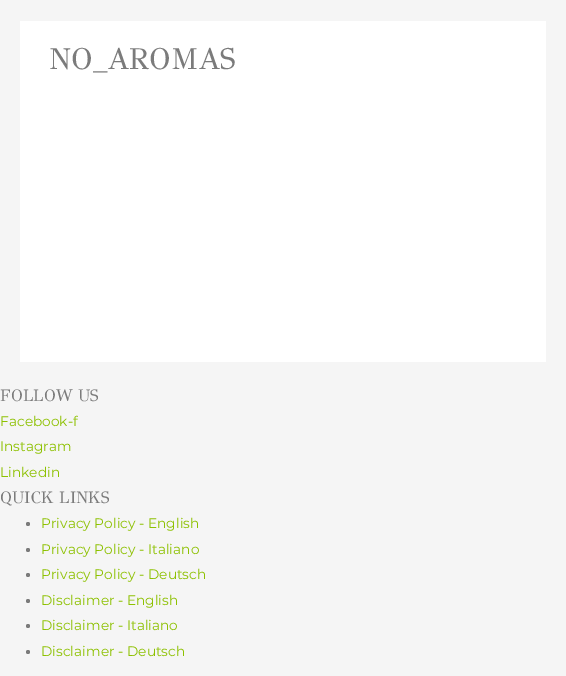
%!PS
<< /PageSize [566 676] >> setpagedevice
/fl/fill load def
/co { dup -16 bitshift 255 div exch dup -8 bitshift 255 and 255 div exch 255 and 255 div setrgbcolor } def
/fn { [ exch dup neg 0 0 3 -1 roll 0 0 ] selectfont } def
/tx { co fn moveto show } def
/bx { co rectfill } def
/ci { newpath 0 360 arc closepath } def
0 676 translate 1 -1 scale
4 setmiterlimit
0 0 566 676 16#F5F5F5 bx
20 21 526 341 16#FFFFFF bx
16#7B7B7B co
28 524 2 ci fl
28 550 2 ci fl
28 575 2 ci fl
28 601 2 ci fl
28 626 2 ci fl
28 652 2 ci fl
(NO_AROMAS) 49 69 /GFSDidot-Regular 30 16#7B7B7B tx
(FOLLOW US) 0 401 /GFSDidot-Regular 16.5 16#7B7B7B tx
(Facebook-f) 0 426 /Montserrat-Thin 13.75 16#8DC100 tx
(Instagram) 0 451 /Montserrat-Thin 13.75 16#8DC100 tx
(Linkedin) 0 477 /Montserrat-Thin 13.75 16#8DC100 tx
(QUICK LINKS) 0 503 /GFSDidot-Regular 16.5 16#7B7B7B tx
(Privacy Policy - English) 41 528 /Montserrat-Thin 13.75 16#8DC100 tx
(Privacy Policy - Italiano) 41 554 /Montserrat-Thin 13.75 16#8DC100 tx
(Privacy Policy - Deutsch) 41 579 /Montserrat-Thin 13.75 16#8DC100 tx
(Disclaimer - English) 41 605 /Montserrat-Thin 13.75 16#8DC100 tx
(Disclaimer - Italiano) 41 630 /Montserrat-Thin 13.75 16#8DC100 tx
(Disclaimer - Deutsch) 41 656 /Montserrat-Thin 13.75 16#8DC100 tx
showpage
